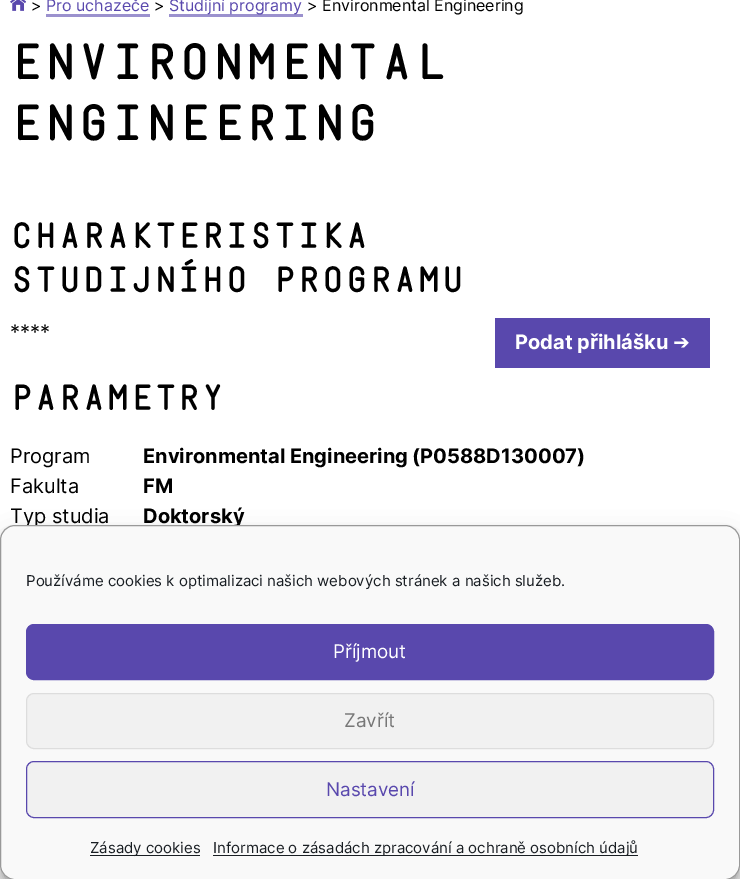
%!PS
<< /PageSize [740 879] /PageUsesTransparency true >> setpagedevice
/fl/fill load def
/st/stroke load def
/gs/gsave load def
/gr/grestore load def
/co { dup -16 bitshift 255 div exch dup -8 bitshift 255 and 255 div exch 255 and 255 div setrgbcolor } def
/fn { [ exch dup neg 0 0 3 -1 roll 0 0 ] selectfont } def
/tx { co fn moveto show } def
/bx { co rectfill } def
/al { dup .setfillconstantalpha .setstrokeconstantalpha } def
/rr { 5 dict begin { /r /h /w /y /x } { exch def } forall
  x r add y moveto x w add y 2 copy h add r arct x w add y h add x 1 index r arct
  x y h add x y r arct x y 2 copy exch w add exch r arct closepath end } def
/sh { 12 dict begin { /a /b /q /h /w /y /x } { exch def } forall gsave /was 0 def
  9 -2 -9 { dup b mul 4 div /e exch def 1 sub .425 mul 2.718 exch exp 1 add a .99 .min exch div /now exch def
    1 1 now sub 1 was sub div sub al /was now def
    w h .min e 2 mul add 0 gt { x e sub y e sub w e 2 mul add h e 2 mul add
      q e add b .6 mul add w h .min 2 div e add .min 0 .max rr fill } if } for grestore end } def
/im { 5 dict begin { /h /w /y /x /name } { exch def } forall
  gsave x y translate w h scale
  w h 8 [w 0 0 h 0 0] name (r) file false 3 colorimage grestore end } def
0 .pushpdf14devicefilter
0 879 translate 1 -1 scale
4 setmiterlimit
0 0 740 879 16#FFFFFF bx
(media/1.raw) 10 0 16 11 im
46 14 104 3 16#9B91CE bx
169 14 134 3 16#9B91CE bx
495 318 215 50 16#5948AD bx
16#000000 co
0 533 740 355 15 4 .23 sh
0 538 740 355 15 12.5 .19 sh
(>) 31 11 /Inter-Regular 16 16#000000 tx
(Pro uchazeče) 46 11 /Inter-Regular 16 16#5948AD tx
(>) 154 11 /Inter-Regular 16 16#000000 tx
(Studijní programy) 169 11 /Inter-Regular 16 16#5948AD tx
(> Environmental Engineering) 307 11 /Inter-Regular 16 16#000000 tx
(Environmental) 10 78 /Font-Bold 45 16#000000 tx
(Engineering) 10 139 /Font-Bold 45 16#000000 tx
(Charakteristika) 10 247 /Font-Bold 32 16#000000 tx
(studijního programu) 10 291 /Font-Bold 32 16#000000 tx
(****) 10 339 /Inter-Regular 20 16#000000 tx
(Podat přihlášku) 515 349 /Inter-Bold 20 16#FFFFFF tx
(➔) 673 349 /DejaVuSans-Regular 20 16#FFFFFF tx
(Parametry) 10 409 /Font-Bold 32 16#000000 tx
(Program) 10 463 /Inter-Regular 20 16#000000 tx
(Environmental Engineering \(P0588D130007\)) 143 463 /Inter-Bold 20 16#000000 tx
(Fakulta) 10 493 /Inter-Regular 20 16#000000 tx
(FM) 143 493 /Inter-Bold 20 16#000000 tx
(Typ studia) 10 523 /Inter-Regular 20 16#000000 tx
(Doktorský) 143 523 /Inter-Bold 20 16#000000 tx
16#F9F9F9 co
.5 525.5 739 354 14.5 rr gs fl gr
16#999999 co
st
(Používáme cookies k optimalizaci našich webových stránek a našich služeb.) 26 586 /Inter-Regular 15 16#191E23 tx
16#5948AD co
26.5 624.5 687 55 7.5 rr gs fl gr
st
(Příjmout) 333 658 /Inter-Regular 18.75 16#FFFFFF tx
16#F1F1F1 co
26.5 693.5 687 55 7.5 rr gs fl gr
16#DDDDDD co
st
(Zavřít) 344 727 /Inter-Regular 18.75 16#777777 tx
16#F1F1F1 co
26.5 761.5 687 56 7.5 rr gs fl gr
16#5948AD co
st
(Nastavení) 326 796 /Inter-Regular 18.75 16#5948AD tx
90 855 110 1 16#191E23 bx
(Zásady cookies) 90 853 /Inter-Regular 15 16#191E23 tx
213 855 425 1 16#191E23 bx
(Informace o zásadách zpracování a ochraně osobních údajů) 213 853 /Inter-Regular 15 16#191E23 tx
.poppdf14devicefilter showpage
